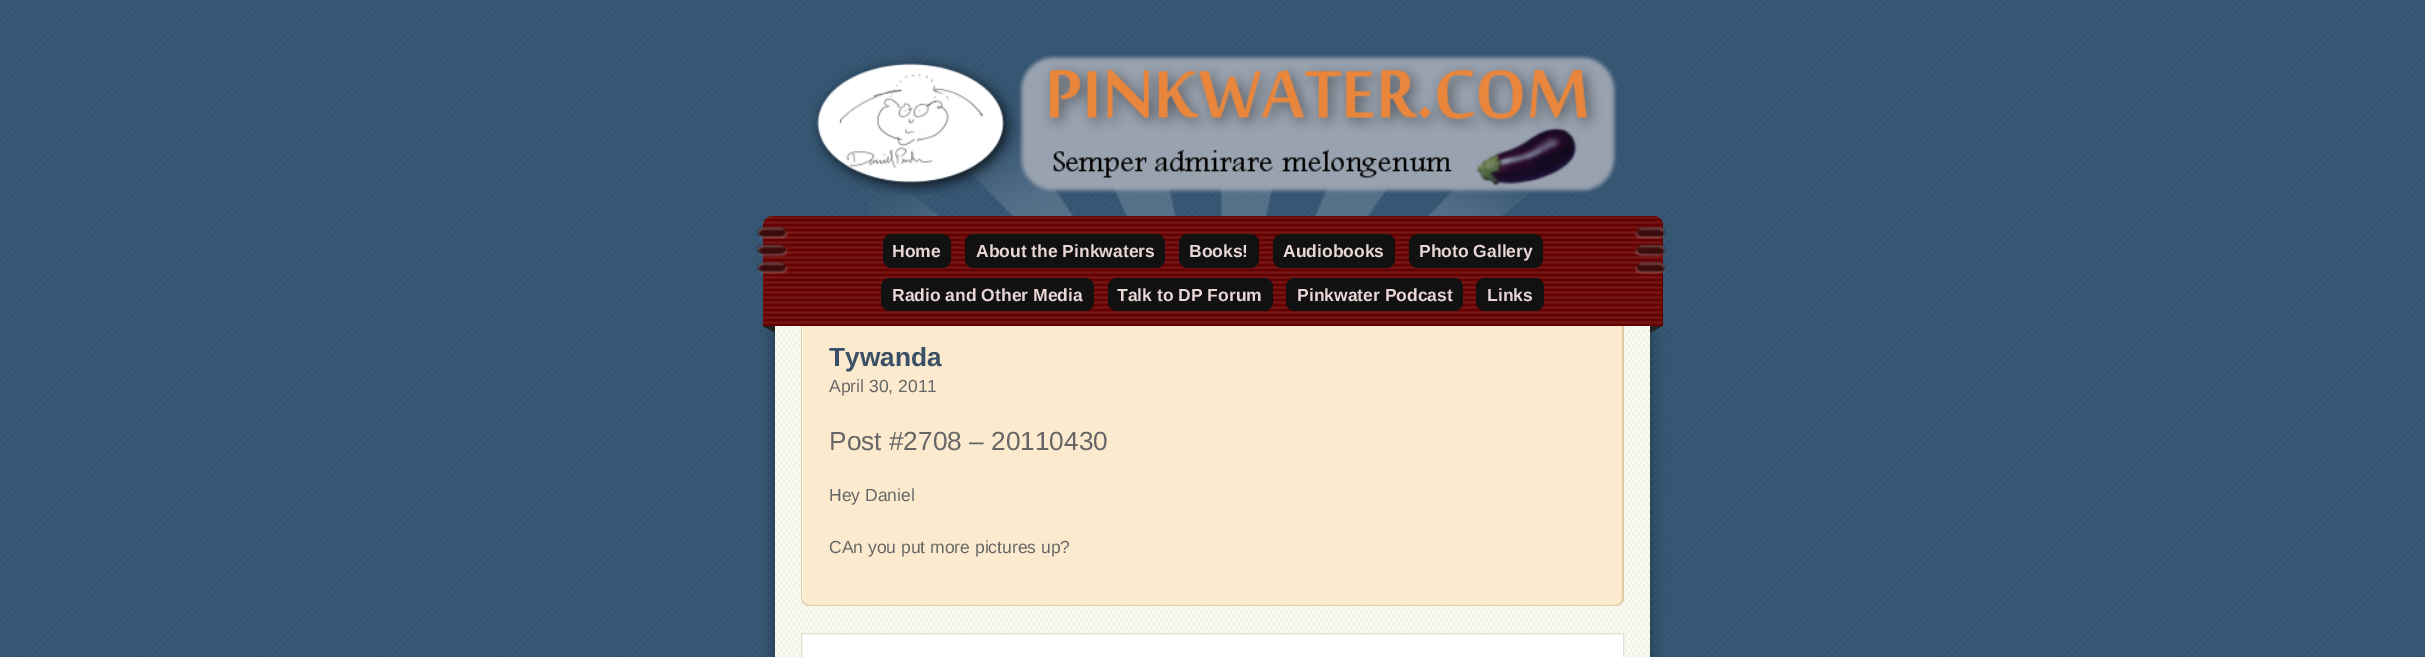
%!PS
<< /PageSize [2425 657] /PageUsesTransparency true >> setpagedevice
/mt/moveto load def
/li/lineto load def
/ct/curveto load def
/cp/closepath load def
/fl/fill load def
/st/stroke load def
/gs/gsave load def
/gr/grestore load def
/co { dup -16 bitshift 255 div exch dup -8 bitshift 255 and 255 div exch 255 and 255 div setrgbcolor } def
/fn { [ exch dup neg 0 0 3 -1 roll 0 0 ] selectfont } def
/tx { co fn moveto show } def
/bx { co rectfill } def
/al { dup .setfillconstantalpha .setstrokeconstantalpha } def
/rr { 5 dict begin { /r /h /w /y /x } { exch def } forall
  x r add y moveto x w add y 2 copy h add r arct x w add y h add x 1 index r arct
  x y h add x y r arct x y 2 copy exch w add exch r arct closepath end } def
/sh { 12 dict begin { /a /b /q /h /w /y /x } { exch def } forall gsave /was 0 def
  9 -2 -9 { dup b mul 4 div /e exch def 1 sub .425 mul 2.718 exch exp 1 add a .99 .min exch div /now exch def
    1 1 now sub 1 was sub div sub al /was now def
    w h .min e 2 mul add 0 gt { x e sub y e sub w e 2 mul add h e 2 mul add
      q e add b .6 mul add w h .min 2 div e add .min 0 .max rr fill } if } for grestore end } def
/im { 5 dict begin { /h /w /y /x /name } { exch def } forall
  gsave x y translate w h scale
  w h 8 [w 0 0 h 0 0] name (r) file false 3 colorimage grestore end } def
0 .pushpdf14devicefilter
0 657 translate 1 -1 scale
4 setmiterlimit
0 0 2425 657 16#375876 bx
(media/1.raw) 0 0 2425 657 im
(media/2.raw) 867 139 667 77 im
(media/3.raw) 811 55 807 140 im
16#000000 co
775 326 875 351 0 6.5 .4 sh
16#660000 co
772 216 mt 1654 216 li 1659 216 1663 220 1663 225 ct 1663 326 li 763 326 li 763 225 li 763 220 767 216 772 216 ct cp fl
(media/4.raw) 763 216 899 108 im
(media/5.raw) 756 226 34 48 im
16#111111 co
883 234 68 34 9 rr fl
965 234 200 34 9 rr fl
1179 234 80 34 9 rr fl
1273 234 122 34 9 rr fl
1409 234 134 34 9 rr fl
(media/6.raw) 1635 226 32 48 im
881 278 213 33 9 rr fl
1108 278 165 33 9 rr fl
1286 278 177 33 9 rr fl
1476 278 68 33 9 rr fl
16#222222 co
775 326 mt 775 332.5 li 762.5 326 li cp fl
1650 332.5 mt 1650 326 li 1662.5 326 li cp fl
775 326 875 331 16#FFFEF2 bx
(media/7.raw) 775 326 875 331 im
16#FBEACE co
803 326 mt 1623 326 li 1623 597 li 1623 601.5 1619.5 605 1615 605 ct 811 605 li 806.5 605 803 601.5 803 597 ct cp fl
16#E2CAA0 co
801 326 mt 1624 326 li 1624 598 li 1624 602 1620 606 1615 606 ct 810 606 li 805 606 801 602 801 598 ct cp 802 326 mt 1622 326 li 1622 598 li 1622 602 1619 605 1615 605 ct 810 605 li 806 605 802 602 802 598 ct cp eofill
16#FFFFFF co
801.5 633.5 mt 1623.5 633.5 li 1623.5 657.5 li 801.5 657.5 li cp gs fl gr
16#E2DCD2 co
st
(Home) 892 257 /LiberationSans-Bold 17.5 16#E9D6D6 tx
(About the Pinkwaters) 976 257 /LiberationSans-Bold 17.5 16#E9D6D6 tx
(Books!) 1189 257 /LiberationSans-Bold 17.5 16#E9D6D6 tx
(Audiobooks) 1283 257 /LiberationSans-Bold 17.5 16#E9D6D6 tx
(Photo Gallery) 1419 257 /LiberationSans-Bold 17.5 16#E9D6D6 tx
(Radio and Other Media) 892 301 /LiberationSans-Bold 17.5 16#E9D6D6 tx
(Talk to DP Forum) 1117 301 /LiberationSans-Bold 17.5 16#E9D6D6 tx
(Pinkwater Podcast) 1297 301 /LiberationSans-Bold 17.5 16#E9D6D6 tx
(Links) 1487 301 /LiberationSans-Bold 17.5 16#E9D6D6 tx
(Tywanda) 829 366 /LiberationSans-Bold 26.25 16#3A5066 tx
(April 30, 2011) 829 392 /LiberationSans-Regular 17.5 16#666666 tx
(Post #2708 – 20110430) 829 450 /LiberationSans-Regular 26.25 16#666666 tx
(Hey Daniel) 829 501 /LiberationSans-Regular 17.5 16#666666 tx
(CAn you put more pictures up?) 829 553 /LiberationSans-Regular 17.5 16#666666 tx
.poppdf14devicefilter showpage
